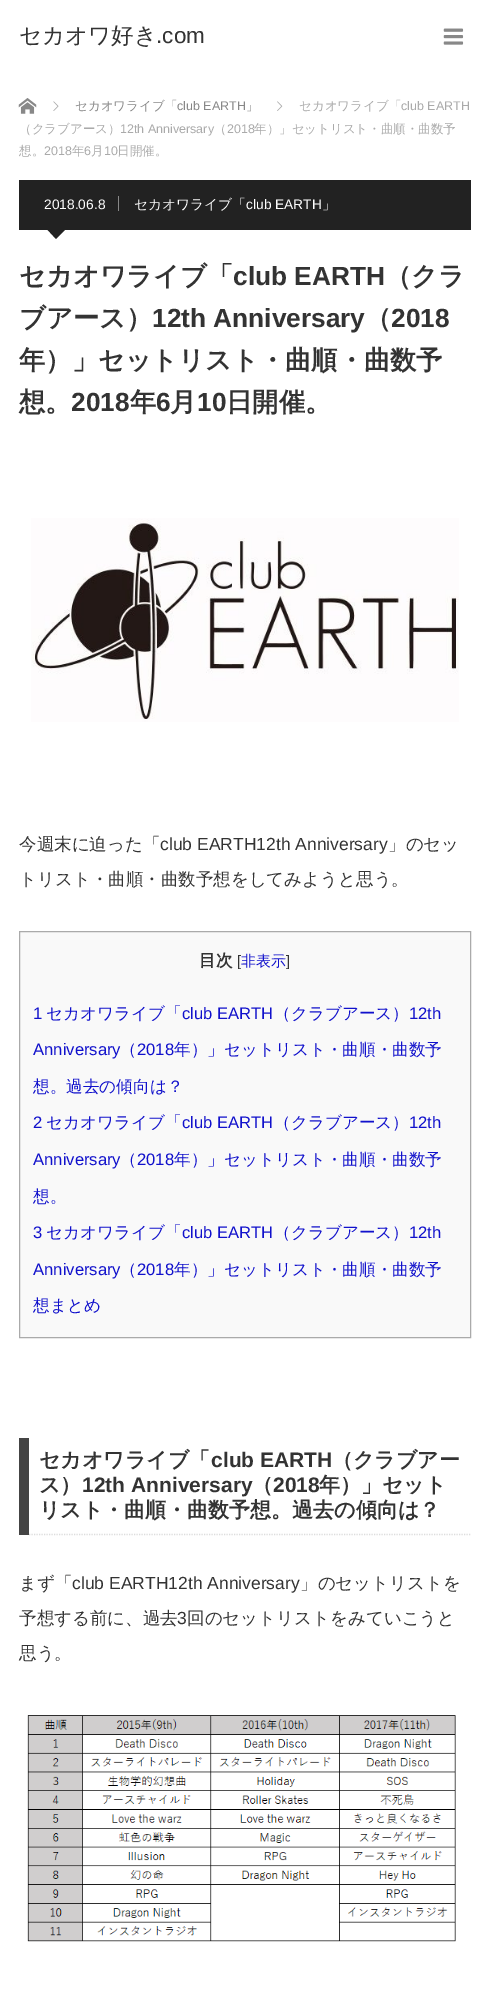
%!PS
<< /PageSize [490 2001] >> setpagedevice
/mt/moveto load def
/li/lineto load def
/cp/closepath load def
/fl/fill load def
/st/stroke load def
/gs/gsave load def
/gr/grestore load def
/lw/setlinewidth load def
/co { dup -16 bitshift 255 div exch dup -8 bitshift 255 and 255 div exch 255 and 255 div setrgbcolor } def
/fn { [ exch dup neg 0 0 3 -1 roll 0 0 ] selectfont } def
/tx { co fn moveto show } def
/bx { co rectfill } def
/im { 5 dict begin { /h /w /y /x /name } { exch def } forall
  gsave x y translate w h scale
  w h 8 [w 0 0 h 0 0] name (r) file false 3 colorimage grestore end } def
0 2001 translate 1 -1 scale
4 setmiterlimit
0 0 490 2001 16#FFFFFF bx
(media/1.raw) 443 28 21 17 im
(media/2.raw) 18 98 19 16 im
(media/3.raw) 277 101 6 10 im
(media/4.raw) 53 101 6 10 im
19 180 452 50 16#222222 bx
118 196 1 15 16#888888 bx
16#222222 co
44 226 mt 69 226 li 56 239 li cp fl
(media/5.raw) 31 518 428 204 im
16#F9F9F9 co
19.5 931.5 mt 470.5 931.5 li 470.5 1337.5 li 19.5 1337.5 li cp gs fl gr
16#AAAAAA co
st
19 1438 10 97 16#444444 bx
16#DDDDDD co
1.2 lw
[1.25 1.25] 0 setdash
29 1534.5 mt 471 1534.5 li st
(media/6.raw) 27 1715 429 227 im
(セカオワ好き) 19 43 /WenQuanYiZenHei-Medium 22.5 16#333333 tx
(.com) 156 43 /LiberationSans-Regular 22.5 16#333333 tx
(セカオワライブ「) 299 110 /WenQuanYiZenHei-Medium 12.5 16#AAAAAA tx
(club EARTH) 401 110 /LiberationSans-Regular 12.5 16#AAAAAA tx
(（クラブアース）) 19 133 /WenQuanYiZenHei-Medium 12.5 16#AAAAAA tx
(12th Anniversary) 120 133 /LiberationSans-Regular 12.5 16#AAAAAA tx
(（) 214 133 /WenQuanYiZenHei-Medium 12.5 16#AAAAAA tx
(2018) 227 133 /LiberationSans-Regular 12.5 16#AAAAAA tx
(年）」セットリスト・曲順・曲数予) 254 133 /WenQuanYiZenHei-Medium 12.5 16#AAAAAA tx
(想。) 19 155 /WenQuanYiZenHei-Medium 12.5 16#AAAAAA tx
(2018) 44 155 /LiberationSans-Regular 12.5 16#AAAAAA tx
(年) 72 155 /WenQuanYiZenHei-Medium 12.5 16#AAAAAA tx
(6) 84 155 /LiberationSans-Regular 12.5 16#AAAAAA tx
(月) 91 155 /WenQuanYiZenHei-Medium 12.5 16#AAAAAA tx
(10) 104 155 /LiberationSans-Regular 12.5 16#AAAAAA tx
(日開催。) 117 155 /WenQuanYiZenHei-Medium 12.5 16#AAAAAA tx
(セカオワライブ「) 75 110 /WenQuanYiZenHei-Medium 12.5 16#888888 tx
(club EARTH) 177 110 /LiberationSans-Regular 12.5 16#888888 tx
(」) 246 110 /WenQuanYiZenHei-Medium 12.5 16#888888 tx
(2018.06.8) 44 209 /LiberationSans-Regular 13.75 16#FFFFFF tx
(セカオワライブ「) 134 209 /WenQuanYiZenHei-Medium 13.75 16#FFFFFF tx
(club EARTH) 246 209 /LiberationSans-Regular 13.75 16#FFFFFF tx
(」) 322 209 /WenQuanYiZenHei-Medium 13.75 16#FFFFFF tx
(セカオワライブ「) 19 285 /WenQuanYiZenHei-Bold 26.25 16#333333 tx
(club EARTH) 233 285 /LiberationSans-Bold 26.25 16#333333 tx
(（クラ) 385 285 /WenQuanYiZenHei-Bold 26.25 16#333333 tx
(ブアース）) 19 327 /WenQuanYiZenHei-Bold 26.25 16#333333 tx
(12th Anniversary) 152 327 /LiberationSans-Bold 26.25 16#333333 tx
(（) 365 327 /WenQuanYiZenHei-Bold 26.25 16#333333 tx
(2018) 391 327 /LiberationSans-Bold 26.25 16#333333 tx
(年）」セットリスト・曲順・曲数予) 19 369 /WenQuanYiZenHei-Bold 26.25 16#333333 tx
(想。) 19 411 /WenQuanYiZenHei-Bold 26.25 16#333333 tx
(2018) 71 411 /LiberationSans-Bold 26.25 16#333333 tx
(年) 130 411 /WenQuanYiZenHei-Bold 26.25 16#333333 tx
(6) 156 411 /LiberationSans-Bold 26.25 16#333333 tx
(月) 170 411 /WenQuanYiZenHei-Bold 26.25 16#333333 tx
(10) 197 411 /LiberationSans-Bold 26.25 16#333333 tx
(日開催。) 226 411 /WenQuanYiZenHei-Bold 26.25 16#333333 tx
(今週末に迫った「) 19 850 /WenQuanYiZenHei-Medium 17.5 16#333333 tx
(club EARTH12th Anniversary) 160 850 /LiberationSans-Regular 17.5 16#333333 tx
(」のセッ) 388 850 /WenQuanYiZenHei-Medium 17.5 16#333333 tx
(トリスト・曲順・曲数予想をしてみようと思う。) 19 885 /WenQuanYiZenHei-Medium 17.5 16#333333 tx
(目次) 199 966 /WenQuanYiZenHei-Bold 16.6 16#333333 tx
([) 237 966 /LiberationSans-Regular 15 16#333333 tx
(非表示) 241 966 /WenQuanYiZenHei-Medium 15 16#1111CC tx
(]) 286 966 /LiberationSans-Regular 15 16#333333 tx
(1) 33 1019 /LiberationSans-Regular 16.6 16#1111CC tx
(セカオワライブ「) 46 1019 /WenQuanYiZenHei-Medium 16.6 16#1111CC tx
(club EARTH) 182 1019 /LiberationSans-Regular 16.6 16#1111CC tx
(（クラブアース）) 274 1019 /WenQuanYiZenHei-Medium 16.6 16#1111CC tx
(12th) 409 1019 /LiberationSans-Regular 16.6 16#1111CC tx
(Anniversary) 33 1055 /LiberationSans-Regular 16.6 16#1111CC tx
(（) 120 1055 /WenQuanYiZenHei-Medium 16.6 16#1111CC tx
(2018) 137 1055 /LiberationSans-Regular 16.6 16#1111CC tx
(年）」セットリスト・曲順・曲数予) 174 1055 /WenQuanYiZenHei-Medium 16.6 16#1111CC tx
(想。過去の傾向は？) 33 1092 /WenQuanYiZenHei-Medium 16.6 16#1111CC tx
(2) 33 1128 /LiberationSans-Regular 16.6 16#1111CC tx
(セカオワライブ「) 46 1128 /WenQuanYiZenHei-Medium 16.6 16#1111CC tx
(club EARTH) 182 1128 /LiberationSans-Regular 16.6 16#1111CC tx
(（クラブアース）) 274 1128 /WenQuanYiZenHei-Medium 16.6 16#1111CC tx
(12th) 409 1128 /LiberationSans-Regular 16.6 16#1111CC tx
(Anniversary) 33 1165 /LiberationSans-Regular 16.6 16#1111CC tx
(（) 120 1165 /WenQuanYiZenHei-Medium 16.6 16#1111CC tx
(2018) 137 1165 /LiberationSans-Regular 16.6 16#1111CC tx
(年）」セットリスト・曲順・曲数予) 174 1165 /WenQuanYiZenHei-Medium 16.6 16#1111CC tx
(想。) 33 1202 /WenQuanYiZenHei-Medium 16.6 16#1111CC tx
(3) 33 1238 /LiberationSans-Regular 16.6 16#1111CC tx
(セカオワライブ「) 46 1238 /WenQuanYiZenHei-Medium 16.6 16#1111CC tx
(club EARTH) 182 1238 /LiberationSans-Regular 16.6 16#1111CC tx
(（クラブアース）) 274 1238 /WenQuanYiZenHei-Medium 16.6 16#1111CC tx
(12th) 409 1238 /LiberationSans-Regular 16.6 16#1111CC tx
(Anniversary) 33 1275 /LiberationSans-Regular 16.6 16#1111CC tx
(（) 120 1275 /WenQuanYiZenHei-Medium 16.6 16#1111CC tx
(2018) 137 1275 /LiberationSans-Regular 16.6 16#1111CC tx
(年）」セットリスト・曲順・曲数予) 174 1275 /WenQuanYiZenHei-Medium 16.6 16#1111CC tx
(想まとめ) 33 1311 /WenQuanYiZenHei-Medium 16.6 16#1111CC tx
(セカオワライブ「) 39 1467 /WenQuanYiZenHei-Bold 21 16#333333 tx
(club EARTH) 211 1467 /LiberationSans-Bold 21 16#333333 tx
(（クラブアー) 332 1467 /WenQuanYiZenHei-Bold 21 16#333333 tx
(ス）) 39 1492 /WenQuanYiZenHei-Bold 21 16#333333 tx
(12th Anniversary) 82 1492 /LiberationSans-Bold 21 16#333333 tx
(（) 252 1492 /WenQuanYiZenHei-Bold 21 16#333333 tx
(2018) 273 1492 /LiberationSans-Bold 21 16#333333 tx
(年）」セット) 319 1492 /WenQuanYiZenHei-Bold 21 16#333333 tx
(リスト・曲順・曲数予想。過去の傾向は？) 39 1517 /WenQuanYiZenHei-Bold 21 16#333333 tx
(まず「) 19 1589 /WenQuanYiZenHei-Medium 17.5 16#333333 tx
(club EARTH12th Anniversary) 72 1589 /LiberationSans-Regular 17.5 16#333333 tx
(」のセットリストを) 300 1589 /WenQuanYiZenHei-Medium 17.5 16#333333 tx
(予想する前に、過去) 19 1624 /WenQuanYiZenHei-Medium 17.5 16#333333 tx
(3) 177 1624 /LiberationSans-Regular 17.5 16#333333 tx
(回のセットリストをみていこうと) 187 1624 /WenQuanYiZenHei-Medium 17.5 16#333333 tx
(思う。) 19 1659 /WenQuanYiZenHei-Medium 17.5 16#333333 tx
showpage
